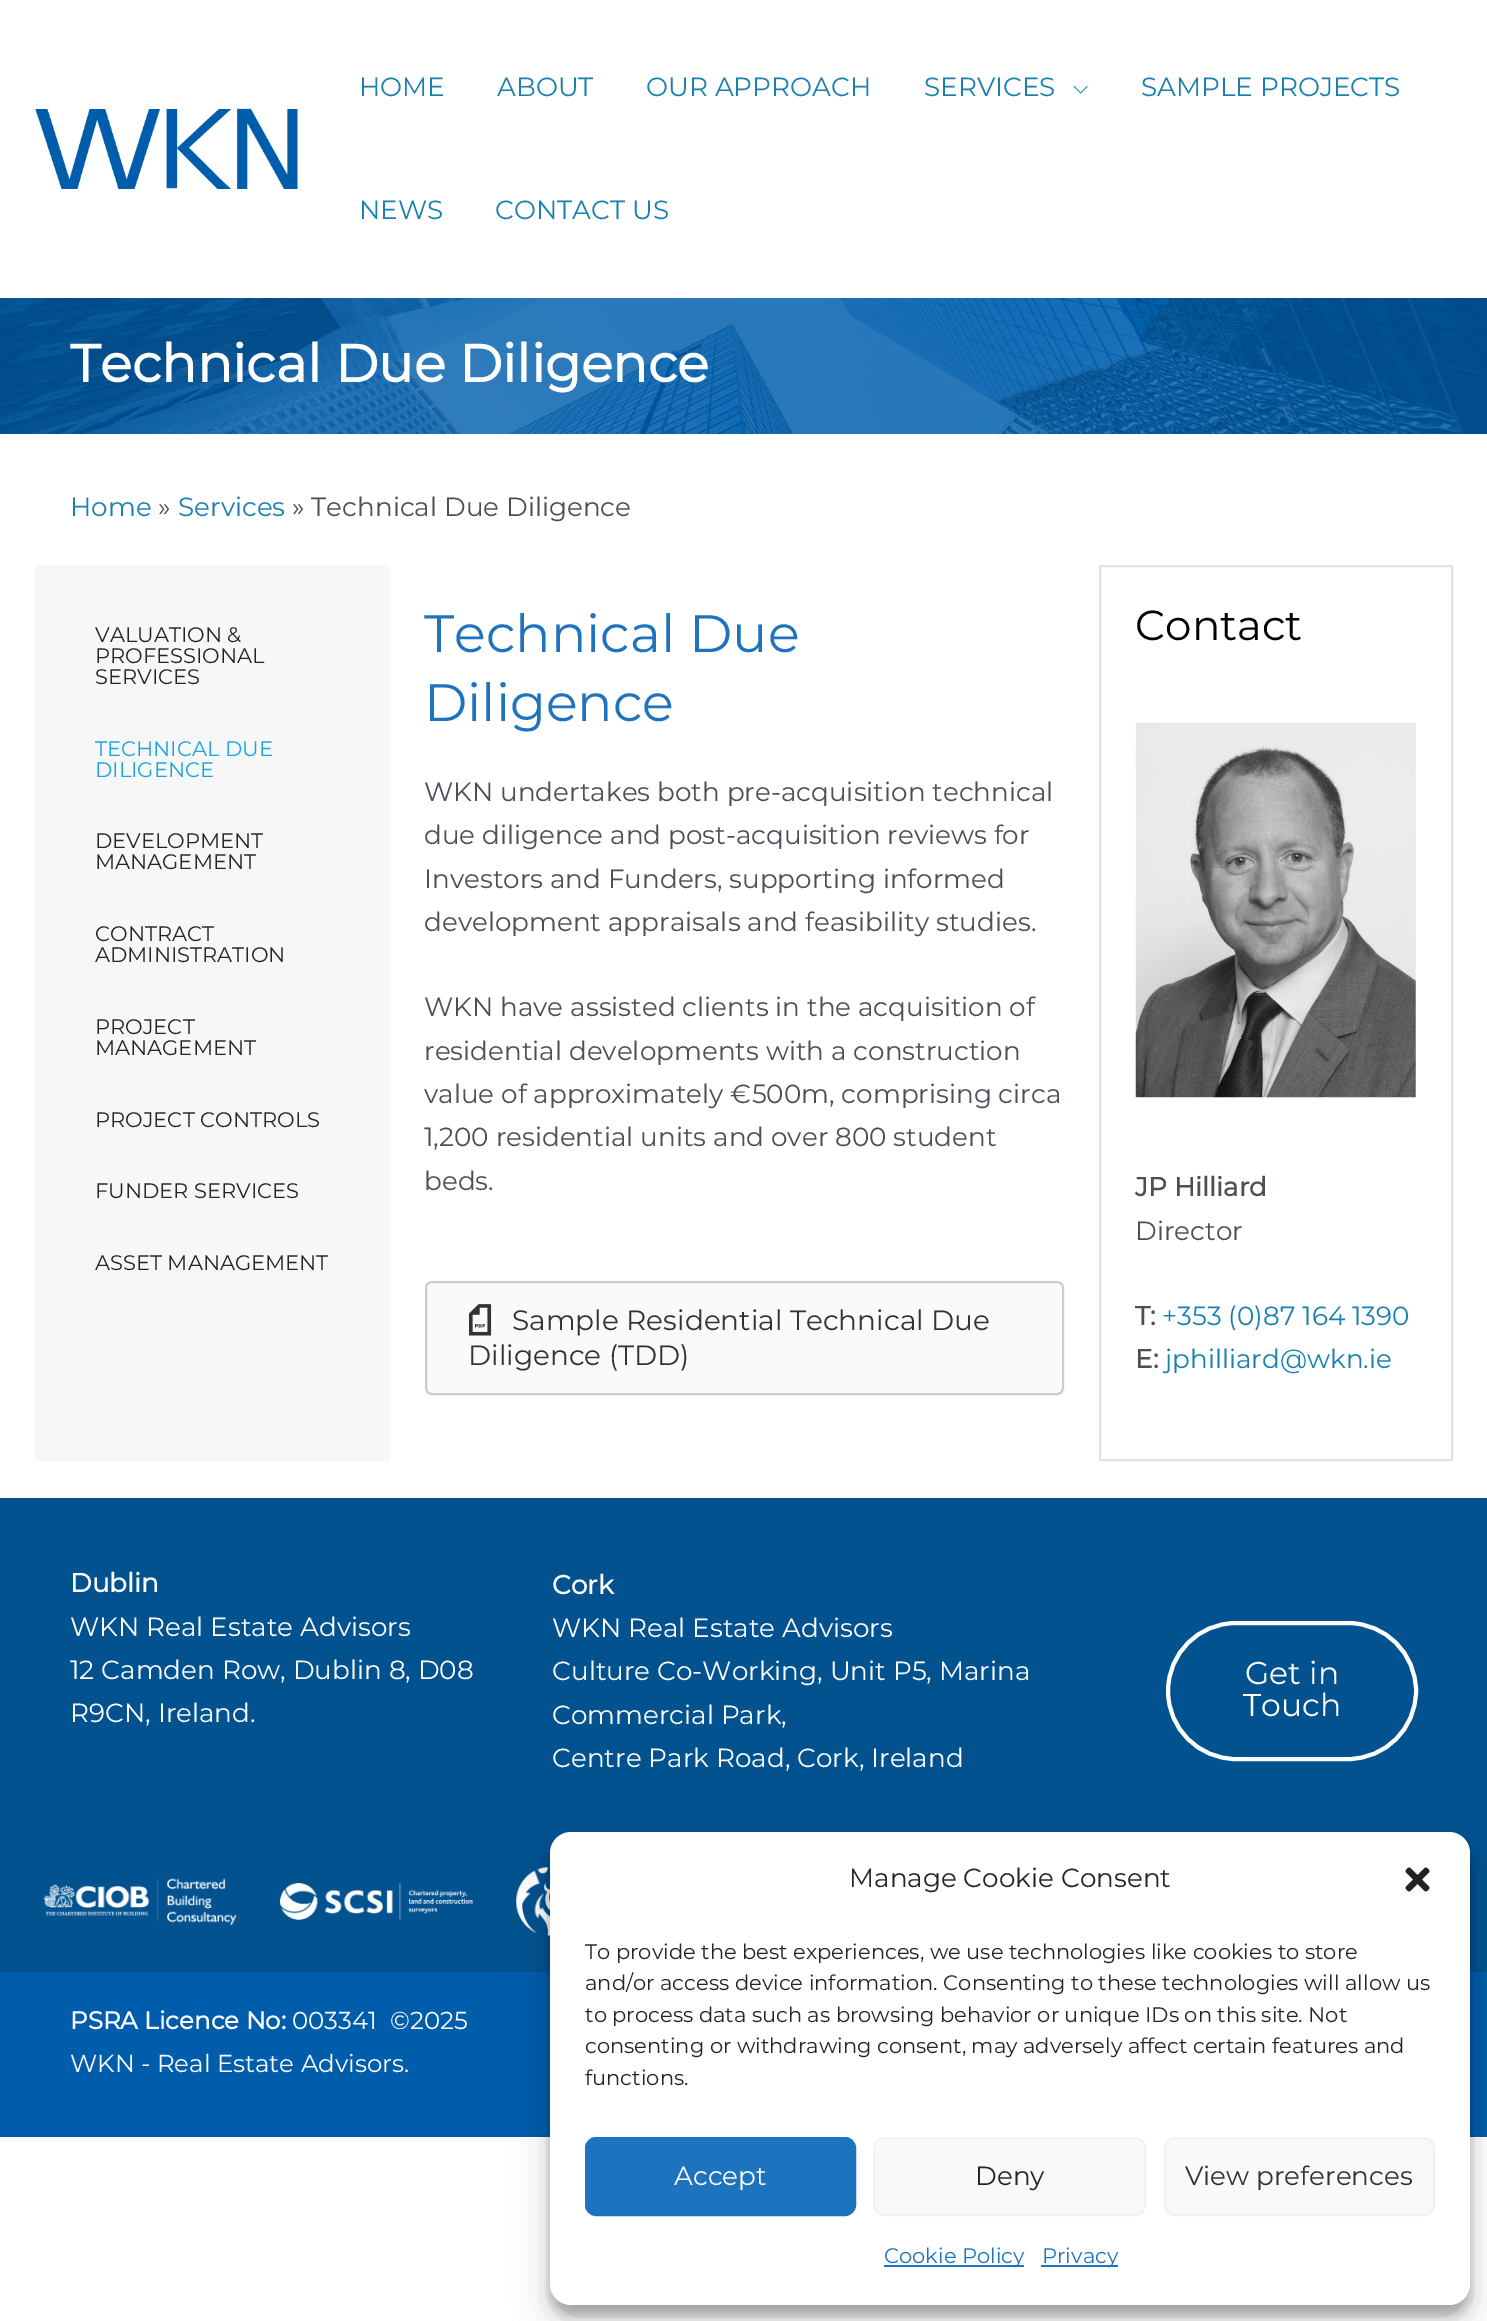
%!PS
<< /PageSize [1487 2321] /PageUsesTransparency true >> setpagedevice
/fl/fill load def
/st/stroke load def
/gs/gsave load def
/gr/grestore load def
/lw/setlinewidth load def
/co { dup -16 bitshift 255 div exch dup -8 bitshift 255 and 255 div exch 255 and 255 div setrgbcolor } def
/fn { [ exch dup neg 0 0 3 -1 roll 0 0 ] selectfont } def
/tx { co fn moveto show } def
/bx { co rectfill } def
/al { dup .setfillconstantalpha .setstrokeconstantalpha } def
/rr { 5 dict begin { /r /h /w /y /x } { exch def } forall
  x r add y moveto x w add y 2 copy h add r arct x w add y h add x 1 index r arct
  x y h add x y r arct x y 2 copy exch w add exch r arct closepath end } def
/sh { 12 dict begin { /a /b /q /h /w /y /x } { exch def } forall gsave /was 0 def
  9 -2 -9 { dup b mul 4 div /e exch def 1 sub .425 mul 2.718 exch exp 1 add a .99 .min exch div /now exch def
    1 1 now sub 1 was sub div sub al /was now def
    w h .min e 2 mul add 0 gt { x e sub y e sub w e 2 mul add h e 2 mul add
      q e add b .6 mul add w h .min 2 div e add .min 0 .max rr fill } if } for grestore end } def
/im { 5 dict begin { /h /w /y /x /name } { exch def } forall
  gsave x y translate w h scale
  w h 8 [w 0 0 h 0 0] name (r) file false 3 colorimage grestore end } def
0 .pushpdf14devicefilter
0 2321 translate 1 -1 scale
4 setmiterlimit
0 0 1487 2321 16#FFFFFF bx
(media/1.raw) 35 108 263 81 im
(media/2.raw) 1073 85 15 9 im
(media/3.raw) 0 298 1487 136 im
35 565 355 896 16#F7F7F7 bx
16#FAFAFA co
426 1282 637 112 6 rr gs fl gr
16#CCCCCC co
2 lw
st
(media/4.raw) 469 1304 23 32 im
16#E2E2E2 co
1100 566 352 894 rectstroke
(media/5.raw) 1135 722 281 376 im
0 1498 1487 474 16#025290 bx
16#FFFFFF co
4 lw
1168 1623 248 136 68 rr st
(media/6.raw) 43 1878 194 47 im
(media/7.raw) 280 1883 193 37 im
(media/8.raw) 516 1867 34 69 im
0 1972 1487 165 16#005DAB bx
16#000000 co
550 1843 920 472 21 5 .23 sh
550 1850 920 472 21 17.5 .19 sh
16#FFFFFF co
550 1832 920 473 21 rr fl
(media/9.raw) 1405 1867 25 25 im
16#1E73BE co
586 2138 269 77 10 rr gs fl gr
2 lw
st
16#F9F9F9 co
874 2138 271 77 10 rr gs fl gr
16#F2F2F2 co
st
16#F9F9F9 co
1165 2138 269 77 10 rr gs fl gr
16#F2F2F2 co
st
884 2265 140 2 16#1E73BE bx
1041 2265 77 2 16#1E73BE bx
(HOME) 359 96 /Montserrat-Thin 26.25 16#1980AF tx
(ABOUT) 497 96 /Montserrat-Thin 26.25 16#1980AF tx
(OUR APPROACH) 646 96 /Montserrat-Thin 26.25 16#1980AF tx
(SERVICES) 924 96 /Montserrat-Thin 26.25 16#1980AF tx
(SAMPLE PROJECTS) 1141 96 /Montserrat-Thin 26.25 16#1980AF tx
(NEWS) 359 219 /Montserrat-Thin 26.25 16#1980AF tx
(CONTACT US) 495 219 /Montserrat-Thin 26.25 16#1980AF tx
(Technical Due Diligence) 70 382 /Montserrat-Bold 52.5 16#FFFFFF tx
(Home) 70 516 /Montserrat-Thin 26.25 16#1980AF tx
(») 158 516 /Montserrat-Thin 26.25 16#4B4F58 tx
(Services) 178 516 /Montserrat-Thin 26.25 16#1980AF tx
(» Technical Due Diligence) 292 516 /Montserrat-Thin 26.25 16#4B4F58 tx
(VALUATION &) 95 642 /Montserrat-Thin 21 16#252525 tx
(PROFESSIONAL) 95 663 /Montserrat-Thin 21 16#252525 tx
(SERVICES) 95 684 /Montserrat-Thin 21 16#252525 tx
(TECHNICAL DUE) 95 756 /Montserrat-Thin 21 16#18A4DE tx
(DILIGENCE) 95 777 /Montserrat-Thin 21 16#18A4DE tx
(DEVELOPMENT) 95 848 /Montserrat-Thin 21 16#252525 tx
(MANAGEMENT) 95 869 /Montserrat-Thin 21 16#252525 tx
(CONTRACT) 95 941 /Montserrat-Thin 21 16#252525 tx
(ADMINISTRATION) 95 962 /Montserrat-Thin 21 16#252525 tx
(PROJECT) 95 1034 /Montserrat-Thin 21 16#252525 tx
(MANAGEMENT) 95 1055 /Montserrat-Thin 21 16#252525 tx
(PROJECT CONTROLS) 95 1127 /Montserrat-Thin 21 16#252525 tx
(FUNDER SERVICES) 95 1198 /Montserrat-Thin 21 16#252525 tx
(ASSET MANAGEMENT) 95 1270 /Montserrat-Thin 21 16#252525 tx
(Technical Due) 424 652 /Montserrat-Thin 52.5 16#1E73BE tx
(Diligence) 424 721 /Montserrat-Thin 52.5 16#1E73BE tx
(WKN undertakes both pre-acquisition technical) 424 801 /Montserrat-Thin 26.25 16#4B4F58 tx
(due diligence and post-acquisition reviews for) 424 844 /Montserrat-Thin 26.25 16#4B4F58 tx
(Investors and Funders, supporting informed) 424 888 /Montserrat-Thin 26.25 16#4B4F58 tx
(development appraisals and feasibility studies.) 424 931 /Montserrat-Thin 26.25 16#4B4F58 tx
(WKN have assisted clients in the acquisition of) 424 1016 /Montserrat-Thin 26.25 16#4B4F58 tx
(residential developments with a construction) 424 1060 /Montserrat-Thin 26.25 16#4B4F58 tx
(value of approximately €500m, comprising circa) 424 1103 /Montserrat-Thin 26.25 16#4B4F58 tx
(1,200 residential units and over 800 student) 424 1146 /Montserrat-Thin 26.25 16#4B4F58 tx
(beds.) 424 1190 /Montserrat-Thin 26.25 16#4B4F58 tx
(Sample Residential Technical Due) 512 1330 /Montserrat-Thin 28 16#333333 tx
(Diligence \(TDD\)) 468 1365 /Montserrat-Thin 28 16#333333 tx
(Contact) 1135 640 /Montserrat-Thin 42 16#000000 tx
(JP Hilliard) 1135 1196 /Montserrat-Bold 26.25 16#4B4F58 tx
(Director) 1135 1240 /Montserrat-Thin 26.25 16#4B4F58 tx
(T:) 1135 1325 /Montserrat-Bold 26.25 16#4B4F58 tx
(+353 \(0\)87 164 1390) 1162 1325 /Montserrat-Thin 26.25 16#1980AF tx
(E:) 1135 1368 /Montserrat-Bold 26.25 16#4B4F58 tx
(jphilliard@wkn.ie) 1165 1368 /Montserrat-Thin 26.25 16#1980AF tx
(Dublin) 70 1592 /Montserrat-Bold 26.25 16#FFFFFF tx
(WKN Real Estate Advisors) 70 1636 /Montserrat-Thin 26.25 16#FFFFFF tx
(12 Camden Row, Dublin 8, D08) 70 1679 /Montserrat-Thin 26.25 16#FFFFFF tx
(R9CN, Ireland.) 70 1722 /Montserrat-Thin 26.25 16#FFFFFF tx
(Cork) 552 1594 /Montserrat-Bold 26.25 16#FFFFFF tx
(WKN Real Estate Advisors) 552 1637 /Montserrat-Thin 26.25 16#FFFFFF tx
(Culture Co-Working, Unit P5, Marina) 552 1680 /Montserrat-Thin 26.25 16#FFFFFF tx
(Commercial Park,) 552 1724 /Montserrat-Thin 26.25 16#FFFFFF tx
(Centre Park Road, Cork, Ireland) 552 1767 /Montserrat-Thin 26.25 16#FFFFFF tx
(Get in) 1245 1684 /Montserrat-Thin 31.5 16#FFFFFF tx
(Touch) 1243 1716 /Montserrat-Thin 31.5 16#FFFFFF tx
(PSRA Licence No:) 70 2029 /Montserrat-Bold 24.5 16#FFFFFF tx
(003341  ©2025) 292 2029 /Montserrat-Thin 24.5 16#FFFFFF tx
(WKN - Real Estate Advisors.) 70 2072 /Montserrat-Thin 24.5 16#FFFFFF tx
(Manage Cookie Consent) 849 1887 /Montserrat-Thin 26.25 16#252525 tx
(To provide the best experiences, we use technologies like cookies to store) 585 1959 /Montserrat-Thin 21 16#252525 tx
(and/or access device information. Consenting to these technologies will allow us) 585 1990 /Montserrat-Thin 21 16#252525 tx
(to process data such as browsing behavior or unique IDs on this site. Not) 585 2022 /Montserrat-Thin 21 16#252525 tx
(consenting or withdrawing consent, may adversely affect certain features and) 585 2053 /Montserrat-Thin 21 16#252525 tx
(functions.) 585 2085 /Montserrat-Thin 21 16#252525 tx
(Accept) 674 2185 /Montserrat-Thin 26.25 16#FFFFFF tx
(Deny) 975 2185 /Montserrat-Thin 26.25 16#252525 tx
(View preferences) 1185 2185 /Montserrat-Thin 26.25 16#333333 tx
(Cookie Policy) 884 2263 /Montserrat-Thin 21 16#1E73BE tx
(Privacy) 1042 2263 /Montserrat-Thin 21 16#1E73BE tx
.poppdf14devicefilter showpage
